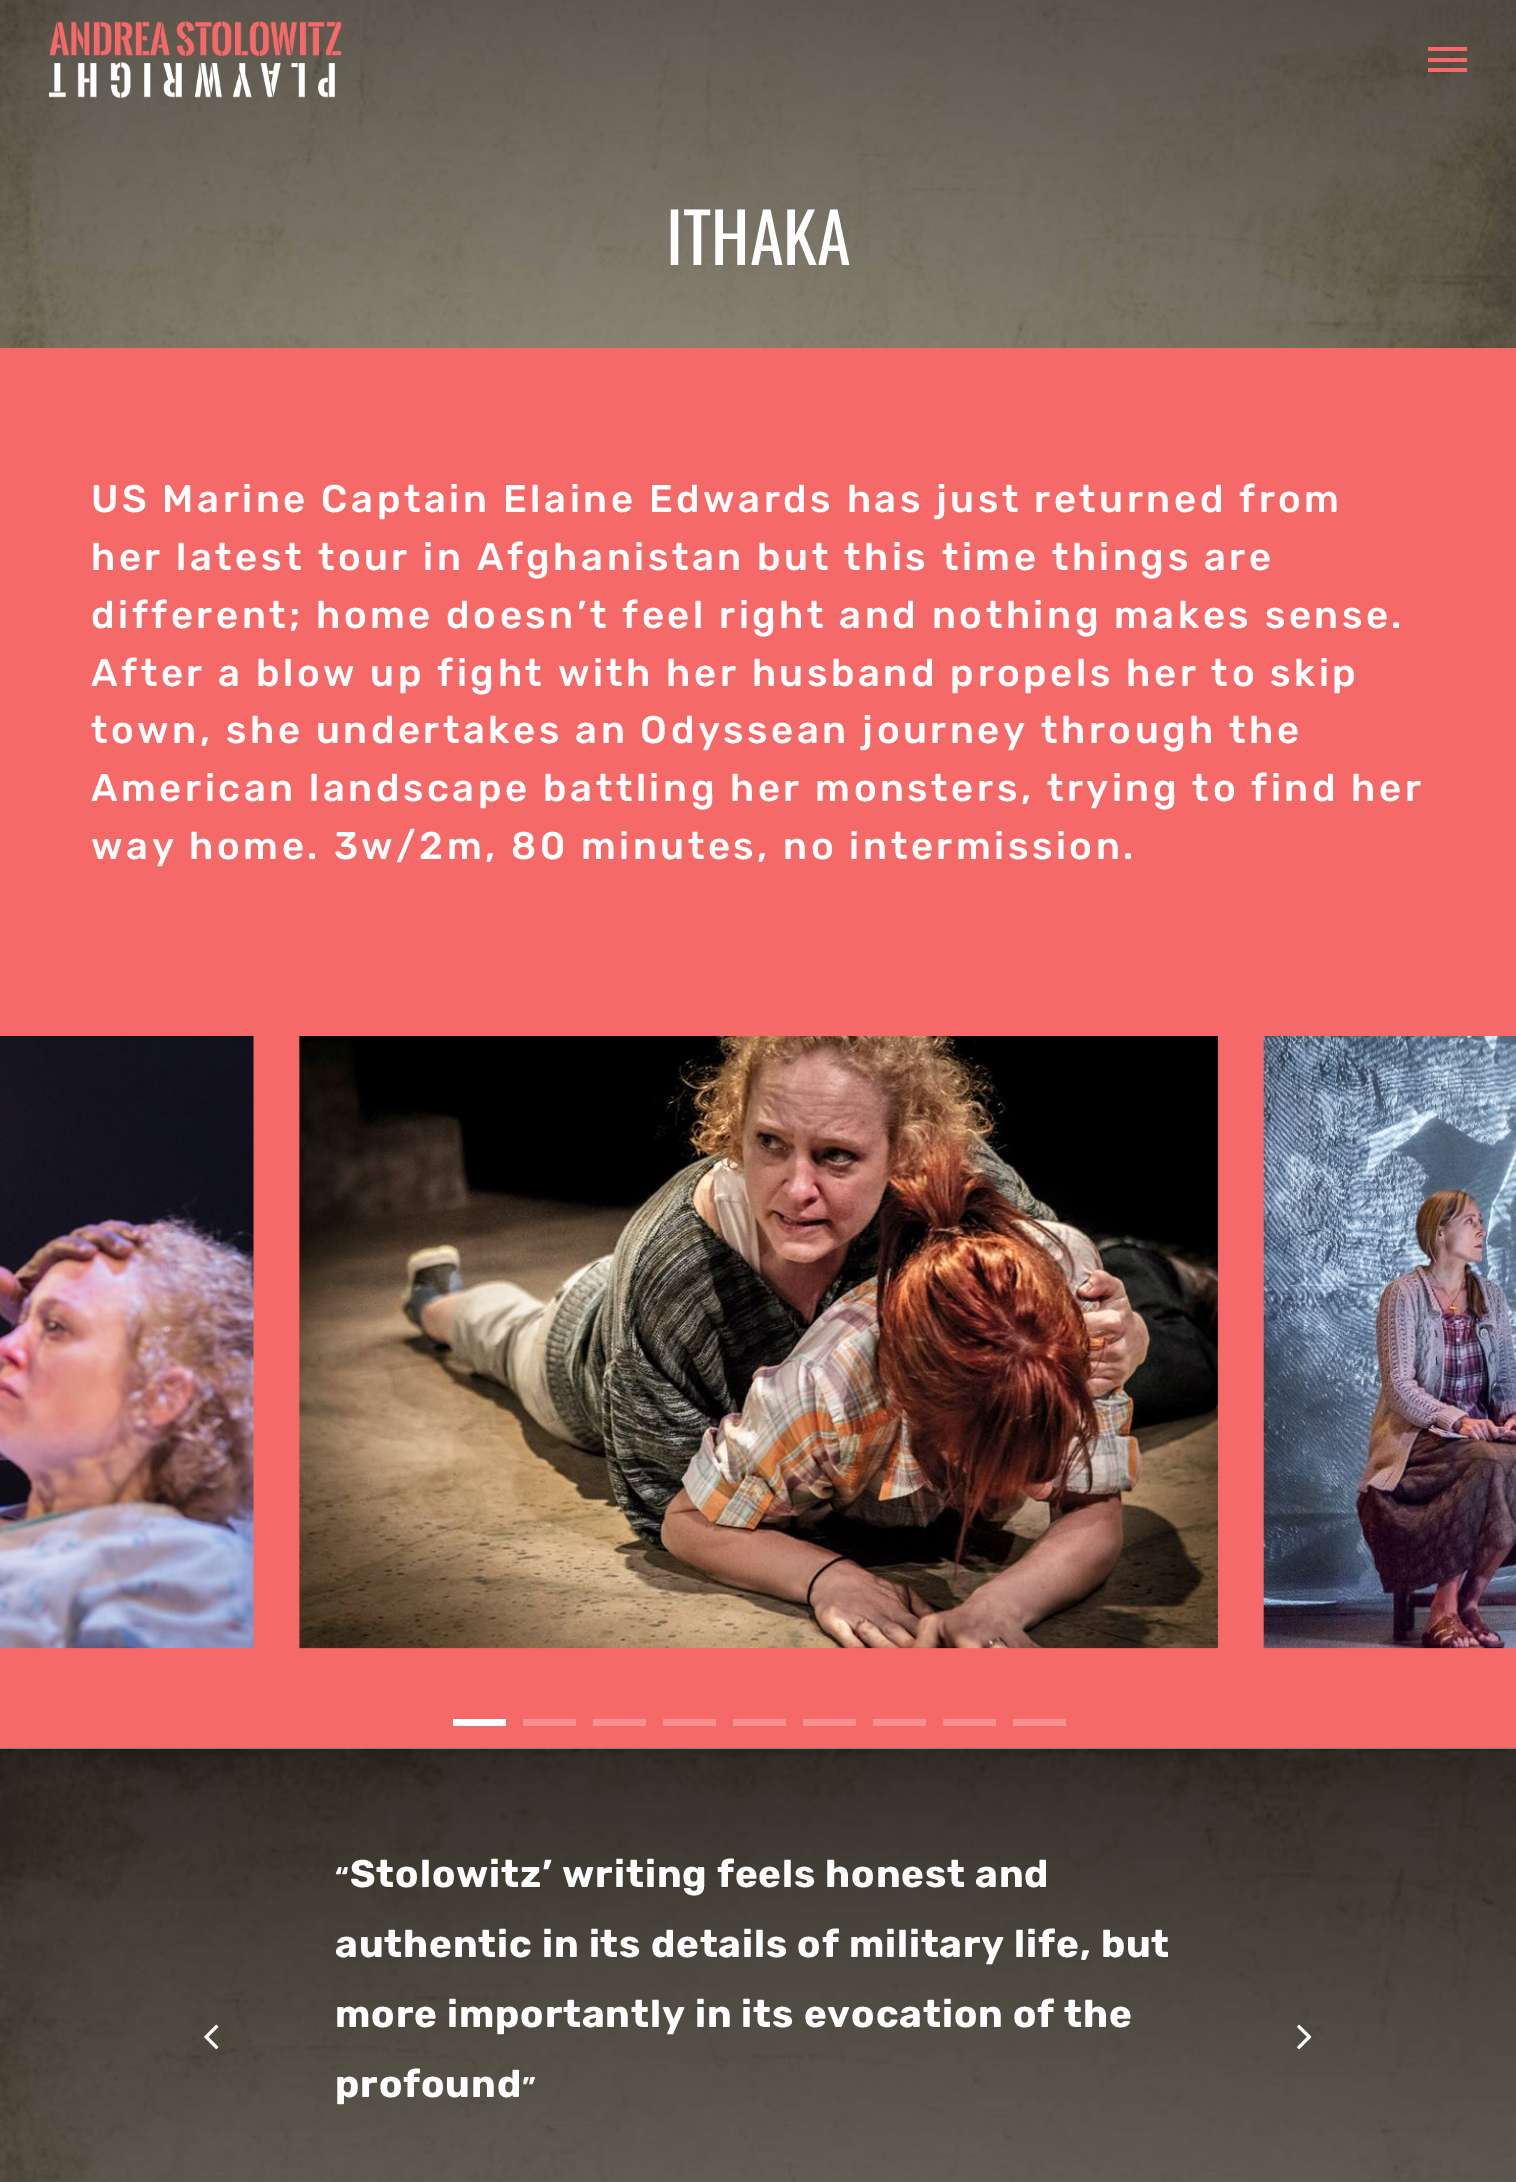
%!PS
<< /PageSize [1516 2182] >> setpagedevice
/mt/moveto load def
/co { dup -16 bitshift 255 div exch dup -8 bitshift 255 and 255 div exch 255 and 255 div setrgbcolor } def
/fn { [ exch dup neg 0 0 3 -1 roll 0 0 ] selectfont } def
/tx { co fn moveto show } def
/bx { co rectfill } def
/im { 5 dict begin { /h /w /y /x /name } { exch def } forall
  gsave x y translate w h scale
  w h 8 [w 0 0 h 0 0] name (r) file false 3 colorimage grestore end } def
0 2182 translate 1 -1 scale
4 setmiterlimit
0 0 1516 2182 16#FFFFFF bx
(media/2.raw) 0 0 1516 348 im
(media/1.raw) 49 21 293 77 im
1428 47 39 4 16#F66969 bx
1428 68 39 4 16#F66969 bx
1428 58 39 4 16#F66969 bx
0 1748 1516 1 16#F6F6F6 bx
0 348 1516 1400 16#F66969 bx
(media/3.raw) 0 1036 254 613 im
(media/4.raw) 299 1036 919 613 im
(media/5.raw) 1263 1036 253 613 im
453 1719 53 7 16#FFFFFF bx
523 1719 53 7 16#F88F8F bx
593 1719 53 7 16#F88F8F bx
663 1719 53 7 16#F88F8F bx
733 1719 53 7 16#F88F8F bx
803 1719 53 7 16#F88F8F bx
873 1719 53 7 16#F88F8F bx
943 1719 53 7 16#F88F8F bx
1013 1719 53 7 16#F88F8F bx
(media/6.raw) 0 1748 1516 434 im
(media/7.raw) 204 2024 15 26 im
(media/8.raw) 1297 2024 15 26 im
(ITHAKA) 666 265 /Oswald-Regular 68.5 16#FFFFFF tx
/Rubik-Medium 38.5 fn
91 512 mt 3.5 0 (US Marine Captain Elaine Edwards has just returned from) ashow
91 570 mt 3.5 0 (her latest tour in Afghanistan but this time things are) ashow
91 628 mt 3.5 0 (different; home doesn’t feel right and nothing makes sense.) ashow
91 686 mt 3.5 0 (After a blow up fight with her husband propels her to skip) ashow
91 743 mt 3.5 0 (town, she undertakes an Odyssean journey through the) ashow
91 801 mt 3.5 0 (American landscape battling her monsters, trying to find her) ashow
91 859 mt 3.5 0 (way home. 3w/2m, 80 minutes, no intermission.) ashow
/Rubik-Bold 28 fn
335 1887 mt .9 0 (“) ashow
/Rubik-Bold 38.5 fn
350 1887 mt .9 0 (Stolowitz’ writing feels honest and) ashow
335 1957 mt .9 0 (authentic in its details of military life, but) ashow
335 2027 mt .9 0 (more importantly in its evocation of the) ashow
335 2097 mt .9 0 (profound) ashow
/Rubik-Bold 28 fn
522 2097 mt .9 0 (”) ashow
showpage
